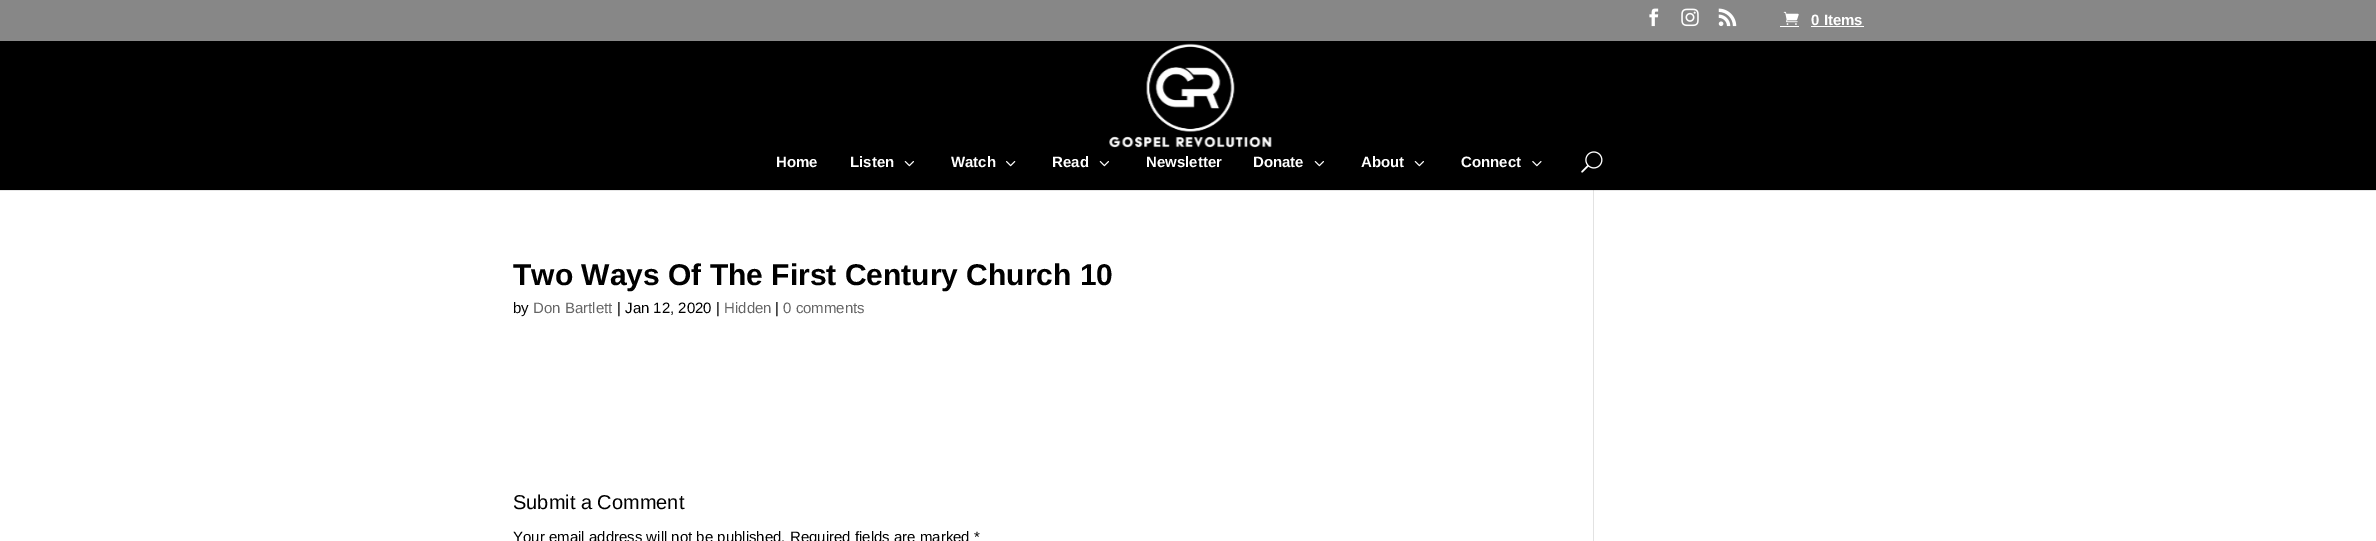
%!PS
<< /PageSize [2376 541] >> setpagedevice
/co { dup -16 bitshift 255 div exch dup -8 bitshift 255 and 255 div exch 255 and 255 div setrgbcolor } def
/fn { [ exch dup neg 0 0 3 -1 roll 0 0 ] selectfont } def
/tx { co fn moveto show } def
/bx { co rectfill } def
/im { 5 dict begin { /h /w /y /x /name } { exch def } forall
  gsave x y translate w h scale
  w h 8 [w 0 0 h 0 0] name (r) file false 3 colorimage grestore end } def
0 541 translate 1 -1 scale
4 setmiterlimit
0 0 2376 541 16#FFFFFF bx
0 0 2376 41 16#878787 bx
(media/1.raw) 1649 8 10 19 im
(media/2.raw) 1681 8 18 19 im
(media/3.raw) 1718 8 19 19 im
(media/4.raw) 1783 11 16 14 im
1780 26 19 1 16#FFFFFF bx
1811 26 53 1 16#FFFFFF bx
0 190 2376 1 16#E6E6E6 bx
1593 188 1 353 16#E2E2E2 bx
0 41 2376 149 16#000000 bx
(media/5.raw) 1109 43 163 105 im
(media/6.raw) 904 161 10 6 im
(media/7.raw) 1006 161 10 6 im
(media/6.raw) 1099 161 10 6 im
(media/6.raw) 1314 161 10 6 im
(media/6.raw) 1414 161 10 6 im
(media/8.raw) 1532 161 10 6 im
(media/9.raw) 1581 151 22 22 im
1593 190 1 1 16#CBCBCB bx
(0 Items) 1811 25 /LiberationSans-Bold 15 16#FFFFFF tx
(Home) 776 167 /LiberationSans-Bold 15 16#FFFFFF tx
(Listen) 850 167 /LiberationSans-Bold 15 16#FFFFFF tx
(Watch) 951 167 /LiberationSans-Bold 15 16#FFFFFF tx
(Read) 1052 167 /LiberationSans-Bold 15 16#FFFFFF tx
(Newsletter) 1146 167 /LiberationSans-Bold 15 16#FFFFFF tx
(Donate) 1253 167 /LiberationSans-Bold 15 16#FFFFFF tx
(About) 1361 167 /LiberationSans-Bold 15 16#FFFFFF tx
(Connect) 1461 167 /LiberationSans-Bold 15 16#FFFFFF tx
(Two Ways Of The First Century Church 10) 513 285 /LiberationSans-Bold 30 16#000000 tx
(by) 513 313 /LiberationSans-Regular 15 16#000000 tx
(Don Bartlett) 533 313 /LiberationSans-Regular 15 16#666666 tx
(| Jan 12, 2020 |) 617 313 /LiberationSans-Regular 15 16#000000 tx
(Hidden) 724 313 /LiberationSans-Regular 15 16#666666 tx
(|) 775 313 /LiberationSans-Regular 15 16#000000 tx
(0 comments) 783 313 /LiberationSans-Regular 15 16#666666 tx
(Submit a Comment) 513 509 /LiberationSans-Regular 20 16#000000 tx
(Your email address will not be published. Required fields are marked *) 513 542 /LiberationSans-Regular 15 16#000000 tx
showpage
